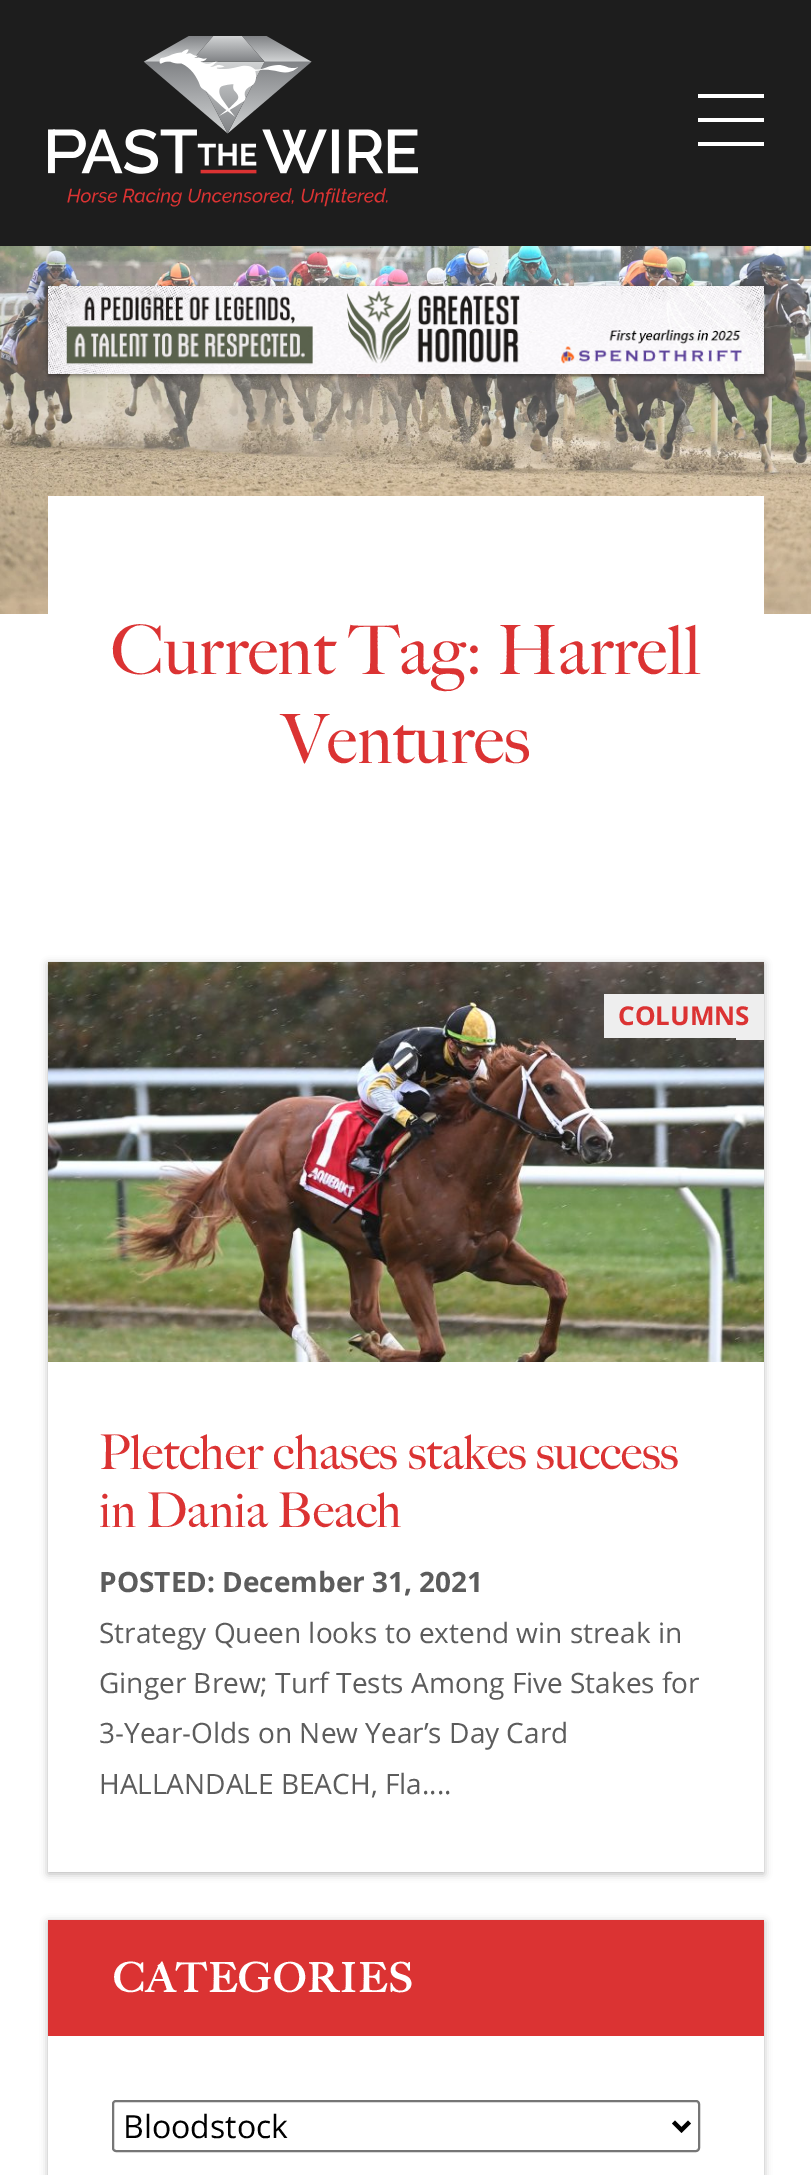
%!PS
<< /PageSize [811 2175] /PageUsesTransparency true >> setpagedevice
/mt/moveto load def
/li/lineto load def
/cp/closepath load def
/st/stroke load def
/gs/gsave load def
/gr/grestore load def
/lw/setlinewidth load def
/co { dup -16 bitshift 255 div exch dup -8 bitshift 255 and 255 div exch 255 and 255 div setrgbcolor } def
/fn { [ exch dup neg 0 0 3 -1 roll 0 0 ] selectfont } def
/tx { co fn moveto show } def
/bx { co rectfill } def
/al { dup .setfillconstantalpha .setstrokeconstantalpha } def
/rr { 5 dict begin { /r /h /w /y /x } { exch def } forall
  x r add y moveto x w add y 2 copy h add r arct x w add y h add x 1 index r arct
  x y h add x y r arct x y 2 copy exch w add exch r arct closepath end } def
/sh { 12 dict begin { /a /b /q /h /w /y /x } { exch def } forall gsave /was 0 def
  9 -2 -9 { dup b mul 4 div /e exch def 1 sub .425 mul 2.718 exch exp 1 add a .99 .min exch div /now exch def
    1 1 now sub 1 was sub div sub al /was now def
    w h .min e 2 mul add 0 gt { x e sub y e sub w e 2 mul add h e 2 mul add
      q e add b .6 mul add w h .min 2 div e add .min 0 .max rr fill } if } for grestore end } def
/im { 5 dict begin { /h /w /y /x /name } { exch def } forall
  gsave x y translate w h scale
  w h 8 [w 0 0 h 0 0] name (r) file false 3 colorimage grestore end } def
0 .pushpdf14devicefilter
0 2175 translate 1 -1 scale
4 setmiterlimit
0 0 811 2175 16#FFFFFF bx
0 0 811 246 16#1D1D1D bx
(media/1.raw) 48 36 370 171 im
698 94 66 4 16#FFFFFF bx
698 118 66 4 16#FFFFFF bx
698 142 66 4 16#FFFFFF bx
(media/2.raw) 0 246 811 368 im
16#000000 co
48 288 716 88 0 2 .4 sh
(media/3.raw) 48 286 716 88 im
48 496 716 118 16#FFFFFF bx
gs
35 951 mt 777 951 li 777 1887 li 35 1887 li cp 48 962 mt 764 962 li 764 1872 li 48 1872 li cp eoclip newpath
16#000000 co
48 964 716 910 0 4 .27 sh
gr
(media/4.raw) 48 962 716 400 im
736 994 28 46 16#EEEEEE bx
604 994 132 44 16#EEEEEE bx
gs
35 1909 mt 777 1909 li 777 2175 li 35 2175 li cp 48 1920 mt 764 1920 li 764 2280 li 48 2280 li cp eoclip newpath
16#000000 co
48 1922 716 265 0 4 .27 sh
gr
48 1920 716 116 16#DB3333 bx
16#767676 co
2 lw
113 2101 586 50 3 rr st
16#000000 co
4 lw
673.5 2122 mt 681.5 2130 li 689.5 2122 li st
(Current Tag: Harrell) 111 674 /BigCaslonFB-Regular 68 16#DB3333 tx
(Ventures) 282 763 /BigCaslonFB-Regular 68 16#DB3333 tx
(COLUMNS) 618 1025 /OpenSans-Bold 26 16#DB3333 tx
(Pletcher chases stakes success) 99 1469 /BigCaslonFB-Regular 48 16#DB3333 tx
(in Dania Beach) 99 1527 /BigCaslonFB-Regular 48 16#DB3333 tx
(POSTED: December 31, 2021) 99 1592 /OpenSans-Bold 28 16#5C5C5C tx
(Strategy Queen looks to extend win streak in) 99 1643 /OpenSans-Regular 28 16#5C5C5C tx
(Ginger Brew; Turf Tests Among Five Stakes for) 99 1693 /OpenSans-Regular 28 16#5C5C5C tx
(3-Year-Olds on New Year’s Day Card) 99 1743 /OpenSans-Regular 28 16#5C5C5C tx
(HALLANDALE BEACH, Fla....) 99 1794 /OpenSans-Regular 28 16#5C5C5C tx
/BigCaslonFB-Bold 40 fn
16#FFFFFF co
113 1992 mt 2 0 (CATEGORIES) ashow
(Bloodstock) 123 2138 /OpenSans-Regular 32 16#000000 tx
.poppdf14devicefilter showpage
